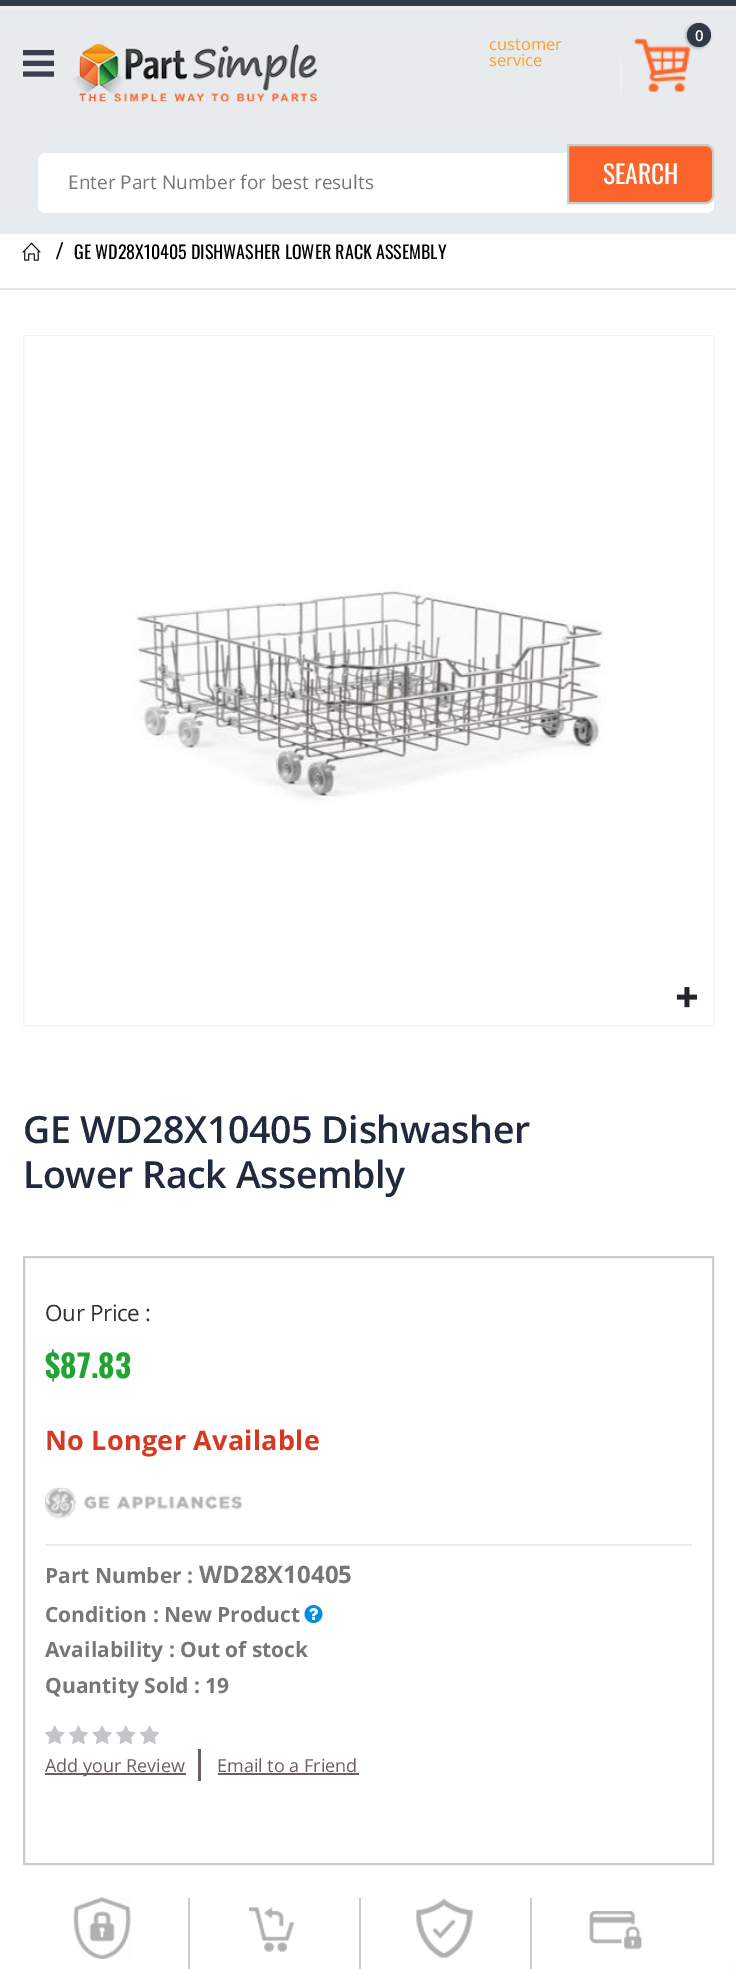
%!PS
<< /PageSize [736 1969] /PageUsesTransparency true >> setpagedevice
/mt/moveto load def
/li/lineto load def
/ct/curveto load def
/cp/closepath load def
/fl/fill load def
/st/stroke load def
/gs/gsave load def
/gr/grestore load def
/lw/setlinewidth load def
/co { dup -16 bitshift 255 div exch dup -8 bitshift 255 and 255 div exch 255 and 255 div setrgbcolor } def
/fn { [ exch dup neg 0 0 3 -1 roll 0 0 ] selectfont } def
/tx { co fn moveto show } def
/bx { co rectfill } def
/al { dup .setfillconstantalpha .setstrokeconstantalpha } def
/ci { newpath 0 360 arc closepath } def
/rr { 5 dict begin { /r /h /w /y /x } { exch def } forall
  x r add y moveto x w add y 2 copy h add r arct x w add y h add x 1 index r arct
  x y h add x y r arct x y 2 copy exch w add exch r arct closepath end } def
/sh { 12 dict begin { /a /b /q /h /w /y /x } { exch def } forall gsave /was 0 def
  9 -2 -9 { dup b mul 4 div /e exch def 1 sub .425 mul 2.718 exch exp 1 add a .99 .min exch div /now exch def
    1 1 now sub 1 was sub div sub al /was now def
    w h .min e 2 mul add 0 gt { x e sub y e sub w e 2 mul add h e 2 mul add
      q e add b .6 mul add w h .min 2 div e add .min 0 .max rr fill } if } for grestore end } def
/im { 5 dict begin { /h /w /y /x /name } { exch def } forall
  gsave x y translate w h scale
  w h 8 [w 0 0 h 0 0] name (r) file false 3 colorimage grestore end } def
0 .pushpdf14devicefilter
0 1969 translate 1 -1 scale
4 setmiterlimit
0 0 736 1969 16#FFFFFF bx
0 9 736 225 16#E8EBED bx
0 0 736 6 16#303A46 bx
0 6 736 3 16#EEEEEE bx
(media/1.raw) 634 38 57 54 im
16#000000 co
686 24 24 24 12 1.5 .3 sh
16#303A46 co
699 35 12 ci fl
(media/2.raw) 23 50 31 27 im
(media/3.raw) 73 43 244 59 im
620 60 2 33 16#EEEEEE bx
16#FFFFFF co
38 153 676 60 8 rr fl
16#FB642B co
568 145 mt 706 145 li 710 145 713 148 713 152 ct 713 196 li 713 200 710 203 706 203 ct 568 203 li cp gs fl gr
16#CCCCCC co
2 lw
st
0 288 736 2 16#E6E6E6 bx
(media/4.raw) 22 242 19 19 im
16#F4F4F4 co
24 336 689 689 rectstroke
(media/5.raw) 24 336 689 689 im
(media/6.raw) 676 987 21 21 im
16#CCCCCC co
24 1257 689 607 rectstroke
45 1544 647 2 16#EBEBEB bx
(media/7.raw) 45 1487 197 32 im
(media/8.raw) 304 1605 19 18 im
(media/9.raw) 45 1725 115 19 im
198 1749 3 32 16#695F5F bx
45 1773 141 2 16#695F5F bx
218 1773 141 2 16#695F5F bx
188 1898 2 71 16#CCCCCC bx
(media/10.raw) 73 1897 59 62 im
359 1898 2 71 16#CCCCCC bx
(media/11.raw) 249 1907 46 45 im
530 1898 2 71 16#CCCCCC bx
(media/12.raw) 416 1898 58 60 im
(media/13.raw) 589 1910 53 40 im
734 1967 2 2 16#F5F5F5 bx
(0) 695 41 /OpenSans-SemiBold 15 16#FFFFFF tx
(customer) 489 50 /OpenSans-Regular 16.5 16#FC9F1C tx
(service) 489 66 /OpenSans-Regular 16.5 16#FC9F1C tx
(Enter Part Number for best results) 68 189 /OpenSans-Regular 19 16#777777 tx
(SEARCH) 603 184 /Oswald-Regular 25.5 16#FFFFFF tx
(/) 56 259 /LiberationSerif-Bold 25.5 16#000000 tx
(GE WD28X10405 DISHWASHER LOWER RACK ASSEMBLY) 74 259 /Oswald-Regular 18 16#000000 tx
/OpenSans-SemiBold 37.5 fn
16#21293C co
23 1143 mt -.4 0 (GE WD28X10405 Dishwasher) ashow
23 1188 mt -.4 0 (Lower Rack Assembly) ashow
/OpenSans-Regular 22.5 fn
16#313131 co
45 1321 mt -.4 0 (Our Price :) ashow
($87.83) 45 1378 /Oswald-Bold 31.5 16#22A334 tx
/OpenSans-Bold 27 fn
16#D83820 co
45 1450 mt .25 0 (No Longer Available) ashow
(Part Number :) 45 1583 /OpenSans-Bold 21 16#777777 tx
(WD28X10405) 199 1583 /OpenSans-Bold 24 16#777777 tx
(Condition : New Product) 45 1622 /OpenSans-Bold 21 16#777777 tx
(Availability : Out of stock) 45 1657 /OpenSans-Bold 21 16#777777 tx
(Quantity Sold : 19) 45 1693 /OpenSans-Bold 21 16#777777 tx
(Add your Review) 45 1772 /OpenSans-Regular 18 16#695F5F tx
(Email to a Friend) 217 1772 /OpenSans-Regular 18 16#695F5F tx
.poppdf14devicefilter showpage
